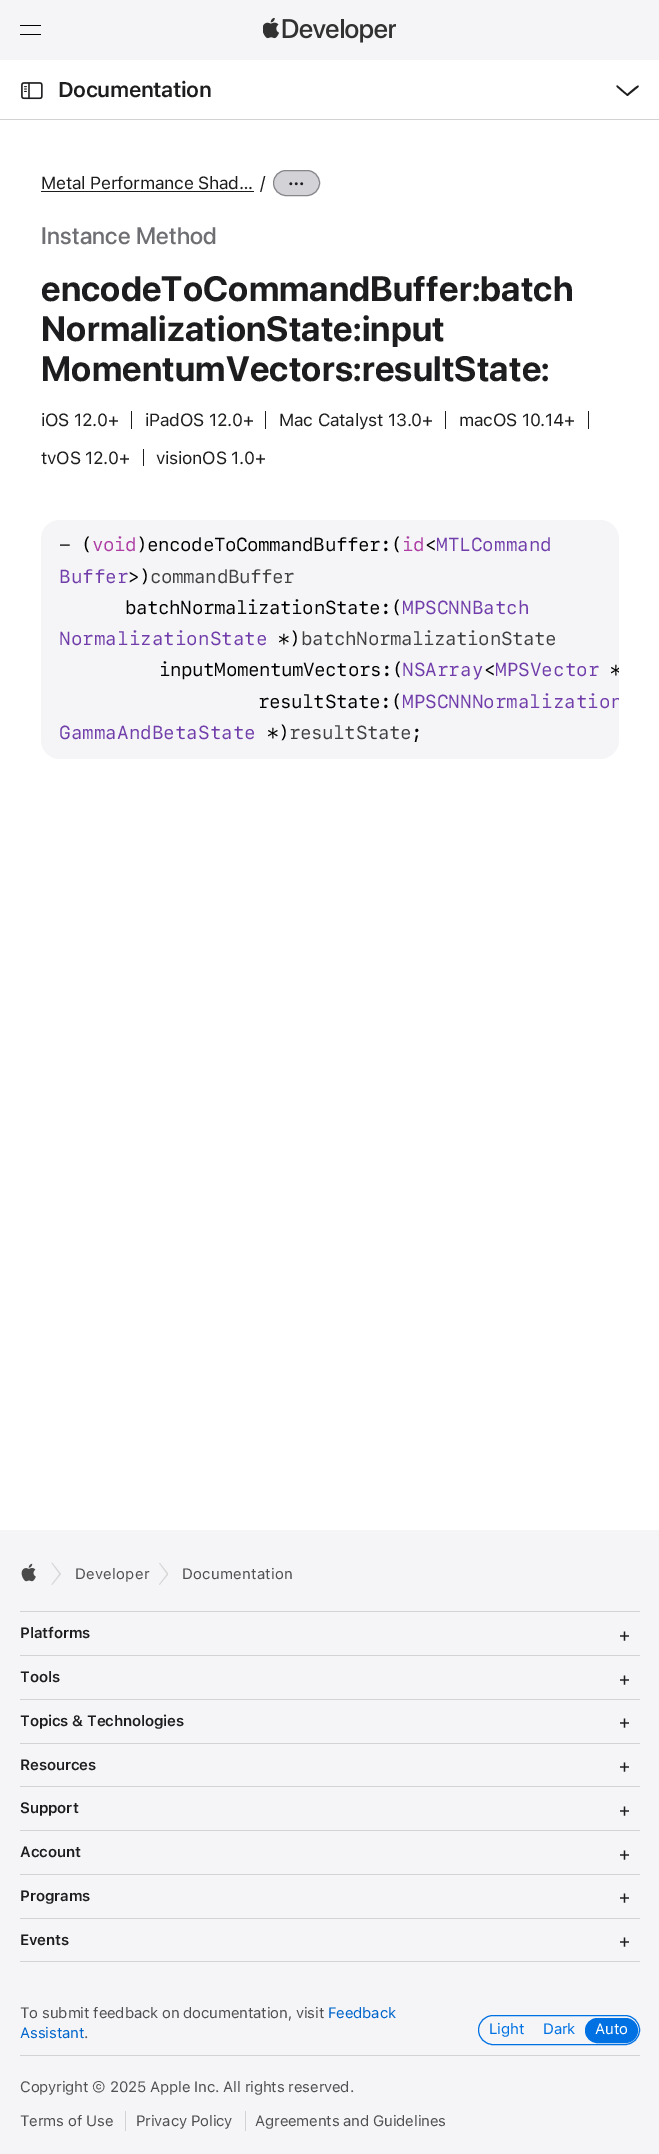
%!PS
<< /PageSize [659 2154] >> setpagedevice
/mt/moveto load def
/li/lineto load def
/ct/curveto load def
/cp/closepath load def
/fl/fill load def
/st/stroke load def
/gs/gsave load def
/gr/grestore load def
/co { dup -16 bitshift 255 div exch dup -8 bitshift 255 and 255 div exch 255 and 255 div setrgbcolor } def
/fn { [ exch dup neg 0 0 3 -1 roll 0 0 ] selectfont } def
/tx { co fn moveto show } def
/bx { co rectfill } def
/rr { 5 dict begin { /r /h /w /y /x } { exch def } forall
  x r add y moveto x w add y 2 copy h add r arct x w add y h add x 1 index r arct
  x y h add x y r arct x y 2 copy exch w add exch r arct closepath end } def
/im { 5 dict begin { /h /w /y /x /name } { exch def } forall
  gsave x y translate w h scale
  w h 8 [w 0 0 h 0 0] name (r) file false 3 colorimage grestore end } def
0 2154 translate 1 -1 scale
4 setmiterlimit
0 0 659 2154 16#FFFFFF bx
0 0 659 60 16#F5F5F7 bx
20 25 21 1 16#000000 bx
20 34 21 1 16#000000 bx
(media/1.raw) 263 18 133 25 im
(media/2.raw) 21 82 22 18 im
16#1D1D1F co
617.5 85.5 mt 628.5 95 li 627.5 96 li 626 95 616.5 87 616.5 86.5 ct 616.5 86 617 85 617.5 85.5 ct cp fl
626.5 95 mt 627.5 93.5 637 85.5 638 85.5 ct 638.5 85.5 639 86.5 638.5 87 ct 627.5 96 li cp fl
0 119 659 1 16#D2D2D2 bx
41 191 213 1 16#1D1D1F bx
16#D2D2D7 co
273.5 170.5 46 25 12.5 rr gs fl gr
16#86868B co
st
(media/3.raw) 289 182 15 4 im
131 411 1 18 16#1D1D1F bx
265 411 1 18 16#1D1D1F bx
445 411 1 18 16#1D1D1F bx
588 411 1 18 16#1D1D1F bx
143 449 1 17 16#1D1D1F bx
16#F5F5F7 co
41 520 578 239 19 rr fl
0 1530 659 624 16#F5F5F7 bx
(media/4.raw) 21 1563 15 19 im
16#D6D6D6 co
52 1562.5 mt 61 1574 li 52 1585 li 51.5 1584.5 li 59.5 1574 li 51.5 1563 li cp fl
gs
159 1563 9 22 rectclip
159.5 1562.5 mt 168.5 1574 li 159.5 1585 li 159 1584.5 li 167 1574 li 159 1563 li cp fl
gr
20 1611 620 1 16#D2D2D7 bx
20 1655 620 1 16#D2D2D7 bx
20 1699 620 1 16#D2D2D7 bx
20 1743 620 1 16#D2D2D7 bx
20 1786 620 1 16#D2D2D7 bx
20 1830 620 1 16#D2D2D7 bx
20 1961 620 1 16#D2D2D7 bx
20 1874 620 1 16#D2D2D7 bx
20 1918 620 1 16#D2D2D7 bx
20 2055 620 1 16#D2D2D7 bx
16#0071E3 co
478.5 2015.5 161 29 14.5 rr st
585.5 2018.5 52 24 12 rr gs fl gr
st
125 2111 1 20 16#D2D2D7 bx
245 2111 1 20 16#D2D2D7 bx
/SFProText-SemiBold 21.25 fn
16#1D1D1F co
58 97 mt -.5 0 (Documentation) ashow
/SFProText-Regular 17.5 fn
41 189 mt -.25 0 (Metal Performance Shad…) ashow
260 189 mt -.25 0 (/) ashow
/SFProDisplay-Medium 23.75 fn
16#6E6E73 co
41 244 mt .25 0 (Instance Method) ashow
/SFProDisplay-Bold 35 fn
16#1D1D1F co
41 301 mt .25 0 (encodeToCommandBuffer:batch) ashow
41 341 mt .25 0 (NormalizationState:input) ashow
41 381 mt .25 0 (MomentumVectors:resultState:) ashow
/SFProText-Regular 17.5 fn
41 426 mt -.25 0 (iOS 12.0+) ashow
145 426 mt -.25 0 (iPadOS 12.0+) ashow
279 426 mt -.25 0 (Mac Catalyst 13.0+) ashow
459 426 mt -.25 0 (macOS 10.14+) ashow
41 464 mt -.25 0 (tvOS 12.0+) ashow
156 464 mt -.25 0 (visionOS 1.0+) ashow
/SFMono-Regular 18.75 fn
16#000000 co
59 551 mt -.5 0 (- \() ashow
16#AD3DA4 co
92 551 mt -.5 0 (void) ashow
16#000000 co
136 551 mt -.5 0 (\)encodeToCommandBuffer:\() ashow
16#AD3DA4 co
402 551 mt -.5 0 (id) ashow
16#000000 co
425 551 mt -.5 0 (<) ashow
(MTLCommand) 436 551 /SFMono-Regular 18.75 16#703DAA tx
(Buffer) 59 583 /SFMono-Regular 18.75 16#703DAA tx
16#000000 co
128 583 mt -.5 0 (>\)) ashow
16#404040 co
150 583 mt -.5 0 (commandBuffer) ashow
16#000000 co
125 614 mt -.5 0 (batchNormalizationState:\() ashow
(MPSCNNBatch) 402 614 /SFMono-Regular 18.75 16#703DAA tx
(NormalizationState) 59 645 /SFMono-Regular 18.75 16#703DAA tx
16#000000 co
278 645 mt -.5 0 (*\)) ashow
16#404040 co
301 645 mt -.5 0 (batchNormalizationState) ashow
16#000000 co
159 676 mt -.5 0 (inputMomentumVectors:\() ashow
(NSArray) 402 676 /SFMono-Regular 18.75 16#703DAA tx
16#000000 co
484 676 mt -.5 0 (<) ashow
(MPSVector) 495 676 /SFMono-Regular 18.75 16#703DAA tx
gs
41 520 578 239 19 rr clip newpath
16#000000 co
610 676 mt -.5 0 (*) ashow
gr
16#000000 co
258 708 mt -.5 0 (resultState:\() ashow
gs
41 520 578 239 19 rr clip newpath
(MPSCNNNormalization) 402 708 /SFMono-Regular 18.75 16#703DAA tx
gr
(GammaAndBetaState) 59 739 /SFMono-Regular 18.75 16#703DAA tx
16#000000 co
267 739 mt -.5 0 (*\)) ashow
16#404040 co
289 739 mt -.5 0 (resultState) ashow
16#000000 co
411 739 mt -.5 0 (;) ashow
/SFProText-Regular 15 fn
16#515154 co
75 1579 mt .25 0 (Developer) ashow
182 1579 mt .25 0 (Documentation) ashow
/SFProText-SemiBold 15 fn
16#1D1D1F co
20 1638 mt -.15 0 (Platforms) ashow
/SFProText-Regular 17.5 fn
619 1641 mt -.15 0 (+) ashow
/SFProText-SemiBold 15 fn
20 1682 mt -.15 0 (Tools) ashow
/SFProText-Regular 17.5 fn
619 1685 mt -.15 0 (+) ashow
/SFProText-SemiBold 15 fn
20 1726 mt -.15 0 (Topics & Technologies) ashow
/SFProText-Regular 17.5 fn
619 1728 mt -.15 0 (+) ashow
/SFProText-SemiBold 15 fn
20 1770 mt -.15 0 (Resources) ashow
/SFProText-Regular 17.5 fn
619 1772 mt -.15 0 (+) ashow
/SFProText-SemiBold 15 fn
20 1813 mt -.15 0 (Support) ashow
/SFProText-Regular 17.5 fn
619 1816 mt -.15 0 (+) ashow
/SFProText-SemiBold 15 fn
20 1857 mt -.15 0 (Account) ashow
/SFProText-Regular 17.5 fn
619 1860 mt -.15 0 (+) ashow
/SFProText-SemiBold 15 fn
20 1901 mt -.15 0 (Programs) ashow
/SFProText-Regular 17.5 fn
619 1903 mt -.15 0 (+) ashow
/SFProText-SemiBold 15 fn
20 1945 mt -.15 0 (Events) ashow
/SFProText-Regular 17.5 fn
619 1947 mt -.15 0 (+) ashow
/SFProText-Regular 15 fn
16#515154 co
20 2018 mt -.15 0 (To submit feedback on documentation, visit) ashow
16#0066CC co
328 2018 mt -.15 0 (Feedback) ashow
20 2038 mt -.15 0 (Assistant) ashow
16#515154 co
84 2038 mt -.15 0 (.) ashow
16#0071E3 co
489 2034 mt -.15 0 (Light) ashow
543 2034 mt -.15 0 (Dark) ashow
16#FFFFFF co
595 2034 mt -.15 0 (Auto) ashow
16#515154 co
20 2092 mt -.15 0 (Copyright © 2025 Apple Inc. All rights reserved.) ashow
20 2126 mt -.15 0 (Terms of Use) ashow
136 2126 mt -.15 0 (Privacy Policy) ashow
255 2126 mt -.15 0 (Agreements and Guidelines) ashow
showpage
